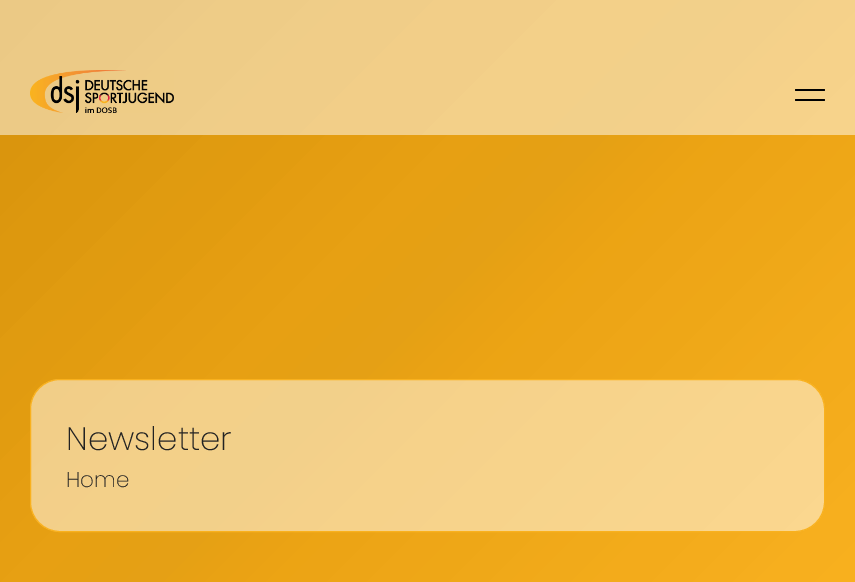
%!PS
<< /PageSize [855 582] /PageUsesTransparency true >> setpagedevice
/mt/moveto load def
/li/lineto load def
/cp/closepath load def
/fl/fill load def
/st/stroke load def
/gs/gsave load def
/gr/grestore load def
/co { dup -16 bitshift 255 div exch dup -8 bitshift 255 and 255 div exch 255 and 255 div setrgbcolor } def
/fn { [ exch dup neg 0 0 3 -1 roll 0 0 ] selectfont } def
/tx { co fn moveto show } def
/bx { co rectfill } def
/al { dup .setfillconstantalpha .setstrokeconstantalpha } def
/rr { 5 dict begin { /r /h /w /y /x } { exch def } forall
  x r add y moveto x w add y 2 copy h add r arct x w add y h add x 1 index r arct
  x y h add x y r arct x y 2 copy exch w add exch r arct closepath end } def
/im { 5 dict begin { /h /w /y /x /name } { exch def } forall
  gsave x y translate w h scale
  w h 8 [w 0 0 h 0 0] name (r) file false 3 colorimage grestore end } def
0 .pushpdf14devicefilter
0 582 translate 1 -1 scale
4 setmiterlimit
0 0 855 582 16#FFFFFF bx
gs 0 135 mt 855 135 li 855 582 li 0 582 li cp clip newpath
<< /ShadingType 2 /ColorSpace /DeviceRGB /Coords [68 -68 787 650] /Extend [true true] /Function << /FunctionType 3 /Domain [0 1] /Functions [<< /FunctionType 2 /Domain [0 1] /C0 [.839 .573 .039] /C1 [.851 .584 .051] /N 1 >> << /FunctionType 2 /Domain [0 1] /C0 [.851 .584 .051] /C1 [.867 .596 .055] /N 1 >> << /FunctionType 2 /Domain [0 1] /C0 [.867 .596 .055] /C1 [.878 .608 .063] /N 1 >> << /FunctionType 2 /Domain [0 1] /C0 [.878 .608 .063] /C1 [.894 .616 .067] /N 1 >> << /FunctionType 2 /Domain [0 1] /C0 [.894 .616 .067] /C1 [.906 .627 .075] /N 1 >> << /FunctionType 2 /Domain [0 1] /C0 [.906 .627 .075] /C1 [.898 .627 .082] /N 1 >> << /FunctionType 2 /Domain [0 1] /C0 [.898 .627 .082] /C1 [.922 .639 .078] /N 1 >> << /FunctionType 2 /Domain [0 1] /C0 [.922 .639 .078] /C1 [.933 .651 .09] /N 1 >> << /FunctionType 2 /Domain [0 1] /C0 [.933 .651 .09] /C1 [.941 .663 .098] /N 1 >> << /FunctionType 2 /Domain [0 1] /C0 [.941 .663 .098] /C1 [.953 .671 .106] /N 1 >> << /FunctionType 2 /Domain [0 1] /C0 [.953 .671 .106] /C1 [.965 .682 .118] /N 1 >> << /FunctionType 2 /Domain [0 1] /C0 [.965 .682 .118] /C1 [.976 .694 .122] /N 1 >>] /Bounds [.08 .17 .25 .33 .42 .5 .58 .67 .75 .83 .92] /Encode [0 1 0 1 0 1 0 1 0 1 0 1 0 1 0 1 0 1 0 1 0 1 0 1] >> >> shfill gr
gs 0 0 mt 855 0 li 855 135 li 0 135 li cp clip newpath
<< /ShadingType 2 /ColorSpace /DeviceRGB /Coords [68 -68 787 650] /Extend [true true] /Function << /FunctionType 3 /Domain [0 1] /Functions [<< /FunctionType 2 /Domain [0 1] /C0 [.922 .788 .522] /C1 [.925 .792 .525] /N 1 >> << /FunctionType 2 /Domain [0 1] /C0 [.925 .792 .525] /C1 [.933 .8 .529] /N 1 >> << /FunctionType 2 /Domain [0 1] /C0 [.933 .8 .529] /C1 [.941 .804 .533] /N 1 >> << /FunctionType 2 /Domain [0 1] /C0 [.941 .804 .533] /C1 [.949 .808 .533] /N 1 >> << /FunctionType 2 /Domain [0 1] /C0 [.949 .808 .533] /C1 [.953 .816 .537] /N 1 >> << /FunctionType 2 /Domain [0 1] /C0 [.953 .816 .537] /C1 [.949 .816 .541] /N 1 >> << /FunctionType 2 /Domain [0 1] /C0 [.949 .816 .541] /C1 [.961 .82 .541] /N 1 >> << /FunctionType 2 /Domain [0 1] /C0 [.961 .82 .541] /C1 [.969 .827 .545] /N 1 >> << /FunctionType 2 /Domain [0 1] /C0 [.969 .827 .545] /C1 [.973 .831 .549] /N 1 >> << /FunctionType 2 /Domain [0 1] /C0 [.973 .831 .549] /C1 [.976 .835 .553] /N 1 >> << /FunctionType 2 /Domain [0 1] /C0 [.976 .835 .553] /C1 [.984 .843 .561] /N 1 >> << /FunctionType 2 /Domain [0 1] /C0 [.984 .843 .561] /C1 [.988 .847 .561] /N 1 >>] /Bounds [.08 .17 .25 .33 .42 .5 .58 .67 .75 .83 .92] /Encode [0 1 0 1 0 1 0 1 0 1 0 1 0 1 0 1 0 1 0 1 0 1 0 1] >> >> shfill gr
(media/1.raw) 30 70 144 43 im
16#000000 co
795 89 30 2 1 rr fl
795 99 30 2 1 rr fl
0.5 al
16#FFFFFF co
30.5 379.5 794 152 29.5 rr fl
1 al
16#F9B11E co
30.5 379.5 794 152 29.5 rr st
(Newsletter) 66 450 /Poppins-ExtraLight 32.5 16#222222 tx
(Home) 66 487 /Poppins-ExtraLight 21.5 16#222222 tx
.poppdf14devicefilter showpage
